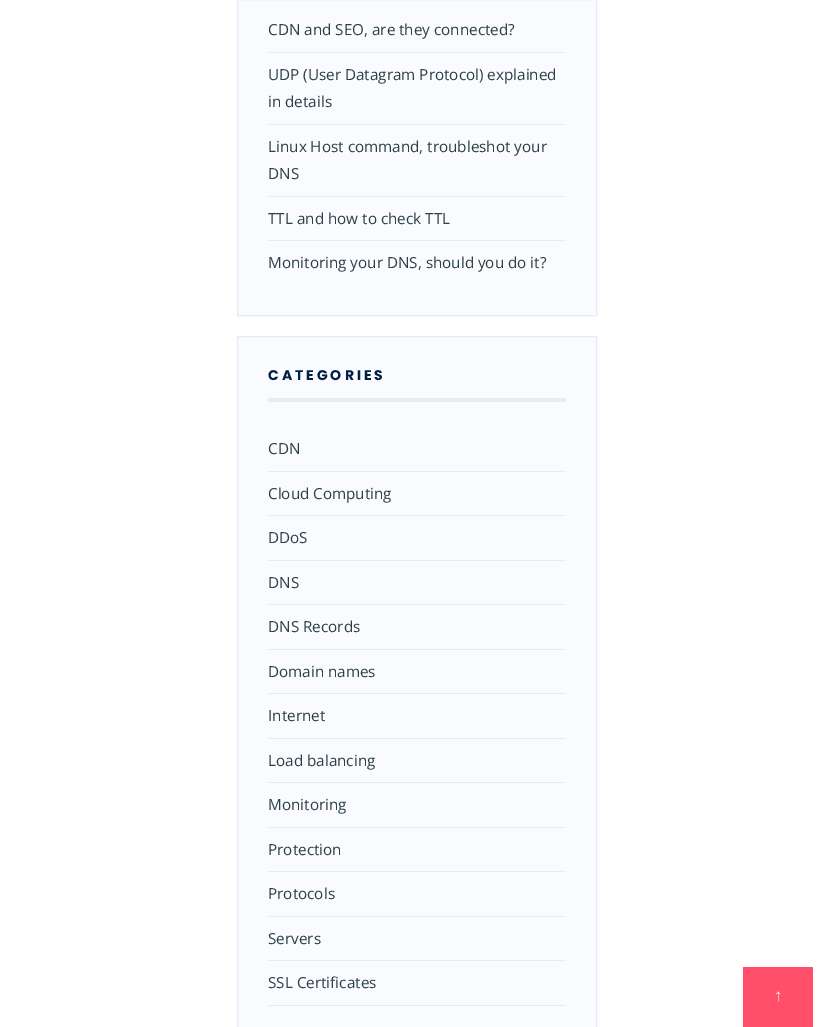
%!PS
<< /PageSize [833 1027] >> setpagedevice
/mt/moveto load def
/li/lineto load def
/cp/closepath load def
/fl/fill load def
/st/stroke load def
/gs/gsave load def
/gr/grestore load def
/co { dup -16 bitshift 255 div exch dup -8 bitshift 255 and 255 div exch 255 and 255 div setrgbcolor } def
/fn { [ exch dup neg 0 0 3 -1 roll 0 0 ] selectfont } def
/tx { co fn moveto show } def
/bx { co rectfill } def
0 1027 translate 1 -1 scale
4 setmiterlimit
0 0 833 1027 16#FFFFFF bx
16#F9FBFF co
237.5 -.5 mt 596.5 -.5 li 596.5 315.5 li 237.5 315.5 li cp gs fl gr
16#E6ECF5 co
st
268 52 298 1 16#E6ECF5 bx
268 124 298 1 16#E6ECF5 bx
268 196 298 1 16#E6ECF5 bx
268 240 298 1 16#E6ECF5 bx
16#F9FBFF co
237.5 336.5 mt 596.5 336.5 li 596.5 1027.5 li 237.5 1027.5 li cp gs fl gr
16#E6ECF5 co
st
268 398 298 4 16#E6ECF5 bx
268 471 298 1 16#E6ECF5 bx
268 515 298 1 16#E6ECF5 bx
268 560 298 1 16#E6ECF5 bx
268 604 298 1 16#E6ECF5 bx
268 649 298 1 16#E6ECF5 bx
268 693 298 1 16#E6ECF5 bx
268 738 298 1 16#E6ECF5 bx
268 782 298 1 16#E6ECF5 bx
268 827 298 1 16#E6ECF5 bx
268 871 298 1 16#E6ECF5 bx
268 916 298 1 16#E6ECF5 bx
268 960 298 1 16#E6ECF5 bx
268 1005 298 1 16#E6ECF5 bx
743 967 70 60 16#FF4F69 bx
(CDN and SEO, are they connected?) 268 35 /OpenSans-Regular 15.25 16#2D4044 tx
(UDP \(User Datagram Protocol\) explained) 268 80 /OpenSans-Regular 15.25 16#2D4044 tx
(in details) 268 107 /OpenSans-Regular 15.25 16#2D4044 tx
(Linux Host command, troubleshot your) 268 152 /OpenSans-Regular 15.25 16#2D4044 tx
(DNS) 268 179 /OpenSans-Regular 15.25 16#2D4044 tx
(TTL and how to check TTL) 268 224 /OpenSans-Regular 15.25 16#2D4044 tx
(Monitoring your DNS, should you do it?) 268 268 /OpenSans-Regular 15.25 16#2D4044 tx
/Poppins-Bold 14 fn
16#002044 co
268 380 mt 3 0 (CATEGORIES) ashow
(CDN) 268 454 /OpenSans-Regular 15.25 16#2D4044 tx
(Cloud Computing) 268 499 /OpenSans-Regular 15.25 16#2D4044 tx
(DDoS) 268 543 /OpenSans-Regular 15.25 16#2D4044 tx
(DNS) 268 588 /OpenSans-Regular 15.25 16#2D4044 tx
(DNS Records) 268 632 /OpenSans-Regular 15.25 16#2D4044 tx
(Domain names) 268 677 /OpenSans-Regular 15.25 16#2D4044 tx
(Internet) 268 721 /OpenSans-Regular 15.25 16#2D4044 tx
(Load balancing) 268 766 /OpenSans-Regular 15.25 16#2D4044 tx
(Monitoring) 268 810 /OpenSans-Regular 15.25 16#2D4044 tx
(Protection) 268 855 /OpenSans-Regular 15.25 16#2D4044 tx
(Protocols) 268 899 /OpenSans-Regular 15.25 16#2D4044 tx
(Servers) 268 944 /OpenSans-Regular 15.25 16#2D4044 tx
(SSL Certificates) 268 988 /OpenSans-Regular 15.25 16#2D4044 tx
(↑) 774 1001 /LiberationSerif-Regular 17 16#FFFFFF tx
showpage
